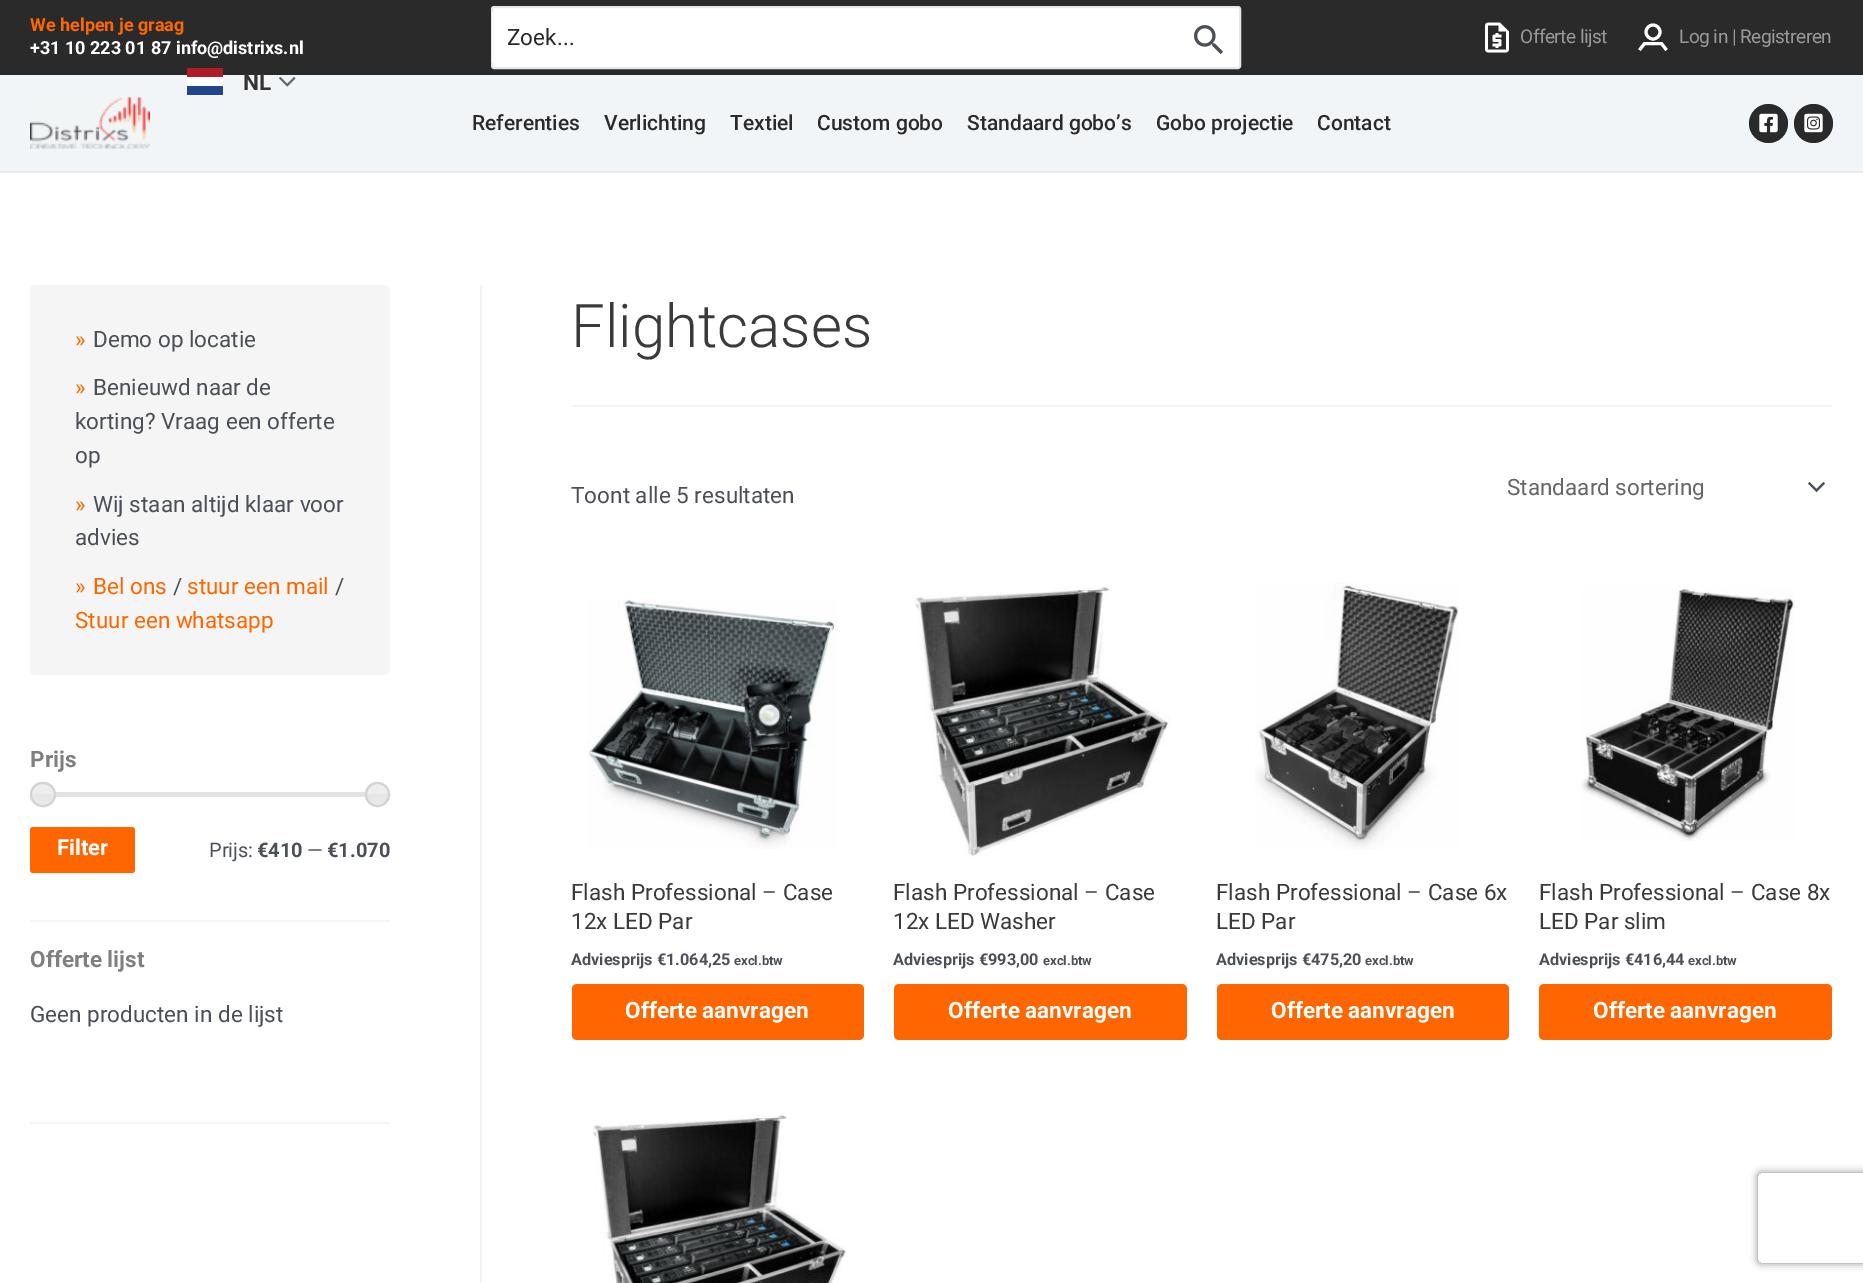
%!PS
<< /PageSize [1863 1283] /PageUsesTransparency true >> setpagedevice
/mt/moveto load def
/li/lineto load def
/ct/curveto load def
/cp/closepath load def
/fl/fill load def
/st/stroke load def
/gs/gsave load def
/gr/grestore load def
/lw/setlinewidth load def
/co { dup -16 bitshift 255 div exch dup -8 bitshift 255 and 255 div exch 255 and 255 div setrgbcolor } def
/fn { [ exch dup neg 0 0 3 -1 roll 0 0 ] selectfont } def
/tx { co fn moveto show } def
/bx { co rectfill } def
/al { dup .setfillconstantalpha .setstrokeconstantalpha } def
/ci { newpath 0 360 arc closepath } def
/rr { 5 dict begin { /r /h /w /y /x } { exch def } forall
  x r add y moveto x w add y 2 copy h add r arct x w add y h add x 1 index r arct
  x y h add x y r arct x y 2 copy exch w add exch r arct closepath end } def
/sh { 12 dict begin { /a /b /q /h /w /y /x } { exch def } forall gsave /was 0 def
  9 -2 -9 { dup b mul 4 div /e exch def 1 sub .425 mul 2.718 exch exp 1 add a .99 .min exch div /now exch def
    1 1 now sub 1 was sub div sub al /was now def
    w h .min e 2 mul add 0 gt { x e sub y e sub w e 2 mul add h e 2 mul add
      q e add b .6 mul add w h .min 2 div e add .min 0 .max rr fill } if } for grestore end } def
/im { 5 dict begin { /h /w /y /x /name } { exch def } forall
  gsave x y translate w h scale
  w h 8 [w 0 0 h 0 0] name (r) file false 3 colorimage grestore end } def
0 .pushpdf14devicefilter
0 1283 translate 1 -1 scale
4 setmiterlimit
0 0 1863 1283 16#FFFFFF bx
0 0 1863 75 16#2A2A2A bx
16#FFFFFF co
492 7 748 61 2 rr gs fl gr
16#E7E7E7 co
2 lw
st
492 12 1 51 16#FFFFFF bx
(media/1.raw) 1194 25 29 30 im
(media/2.raw) 1485 22 24 31 im
3 lw
1666.5 50 mt 1661.5 43.5 li 1644.5 43.5 li 1639.5 50 li st
1653 32 7 ci st
0 75 1863 96 16#F2F5F7 bx
0 171 1863 2 16#EAEAEA bx
187 77 36 9 16#FFFFFF bx
187 86 36 9 16#21468B bx
187 68 36 9 16#AE1C28 bx
(media/3.raw) 279 77 17 10 im
(media/4.raw) 30 97 120 52 im
16#2A2A2A co
1768.5 123.5 19.5 ci fl
(media/5.raw) 1759 113 19 20 im
1813.5 123.5 19.5 ci fl
(media/6.raw) 1804 113 19 20 im
480 285 2 998 16#F2F5F7 bx
16#F5F5F5 co
30 285 360 390 5 rr fl
30 920 360 2 16#F3F5F7 bx
(media/7.raw) 30 781 25 26 im
55 792 310 5 16#E3E3E3 bx
16#D3D3D3 co
2 lw
31 783 24 23 11.5 rr st
(media/8.raw) 365 781 25 26 im
377.5 794.5 11.5 ci st
16#FF6600 co
30 827 105 46 3 rr fl
30 1122 360 2 16#F3F5F7 bx
572 405 1260 2 16#F2F5F7 bx
(media/9.raw) 1808 482 17 11 im
(media/10.raw) 587 599 250 250 im
16#FF6600 co
572 984 292 56 5 rr fl
(media/11.raw) 914 586 257 271 im
894 984 293 56 5 rr fl
(media/12.raw) 1255 582 204 268 im
1217 984 292 56 5 rr fl
(media/13.raw) 1581 586 214 255 im
1539 984 293 56 5 rr fl
(media/14.raw) 592 1113 255 170 im
gs
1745 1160 mt 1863 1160 li 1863 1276 li 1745 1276 li cp 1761 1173 mt 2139 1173 li 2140.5 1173 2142 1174.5 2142 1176 ct 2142 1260 li 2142 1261.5 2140.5 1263 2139 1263 ct 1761 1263 li 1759.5 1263 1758 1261.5 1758 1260 ct 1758 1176 li 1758 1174.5 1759.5 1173 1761 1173 ct cp eoclip newpath
16#808080 co
1758 1173 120 90 3 4 1 sh
gr
(We helpen je graag) 30 31 /Roboto-Bold 18 16#FF6600 tx
(+31 10 223 01 87 info@distrixs.nl) 30 54 /Roboto-Bold 18 16#FFFFFF tx
(Zoek...) 507 45 /Roboto-Regular 22.5 16#2A2A2A tx
/Roboto-Regular 19 fn
16#999999 co
1520 43 mt -.5 0 (Offerte lijst) ashow
1679 43 mt -.5 0 (Log in | Registreren) ashow
(NL) 243 90 /Roboto-Bold 22.5 16#333333 tx
(Referenties) 472 130 /Roboto-Medium 21 16#2A2A2A tx
(Verlichting) 604 130 /Roboto-Medium 21 16#2A2A2A tx
(Textiel) 730 130 /Roboto-Medium 21 16#2A2A2A tx
(Custom gobo) 817 130 /Roboto-Medium 21 16#2A2A2A tx
(Standaard gobo’s) 967 130 /Roboto-Medium 21 16#2A2A2A tx
(Gobo projectie) 1156 130 /Roboto-Medium 21 16#2A2A2A tx
(Contact) 1317 130 /Roboto-Medium 21 16#2A2A2A tx
(») 75 347 /Roboto-Regular 22.5 16#FF6600 tx
(Demo op locatie) 93 347 /Roboto-Regular 22.5 16#4B4F58 tx
(») 75 395 /Roboto-Regular 22.5 16#FF6600 tx
(Benieuwd naar de) 93 395 /Roboto-Regular 22.5 16#4B4F58 tx
(korting? Vraag een offerte) 75 429 /Roboto-Regular 22.5 16#4B4F58 tx
(op) 75 463 /Roboto-Regular 22.5 16#4B4F58 tx
(») 75 512 /Roboto-Regular 22.5 16#FF6600 tx
(Wij staan altijd klaar voor) 93 512 /Roboto-Regular 22.5 16#4B4F58 tx
(advies) 75 545 /Roboto-Regular 22.5 16#4B4F58 tx
(») 75 594 /Roboto-Regular 22.5 16#FF6600 tx
(Bel ons) 93 594 /Roboto-Regular 22.5 16#FF6600 tx
(/) 173 594 /Roboto-Regular 22.5 16#4B4F58 tx
(stuur een mail) 187 594 /Roboto-Regular 22.5 16#FF6600 tx
(/) 335 594 /Roboto-Regular 22.5 16#4B4F58 tx
(Stuur een whatsapp) 75 628 /Roboto-Regular 22.5 16#FF6600 tx
(Prijs) 30 767 /Roboto-Bold 22.5 16#7F7F7F tx
(Filter) 57 855 /Roboto-Bold 22 16#FFFFFF tx
(Prijs:) 209 857 /Roboto-Regular 20 16#4B4F58 tx
(€410) 257 857 /Roboto-Bold 20 16#4B4F58 tx
(—) 307 857 /Roboto-Regular 20 16#4B4F58 tx
(€1.070) 327 857 /Roboto-Bold 20 16#4B4F58 tx
(Offerte lijst) 30 967 /Roboto-Bold 22.5 16#7F7F7F tx
(Geen producten in de lijst) 30 1022 /Roboto-Regular 22.5 16#4B4F58 tx
(Flightcases) 571 347 /Roboto-Light 60 16#3A3A3A tx
(Toont alle 5 resultaten) 571 503 /Roboto-Regular 22.5 16#4B4F58 tx
(Standaard sortering) 1507 495 /Roboto-Regular 22.5 16#666666 tx
(Flash Professional – Case) 571 900 /Roboto-Regular 22.5 16#3A3A3A tx
(12x LED Par) 571 929 /Roboto-Regular 22.5 16#3A3A3A tx
(Adviesprijs €1.064,25) 571 965 /Roboto-Bold 16.25 16#4B4F58 tx
(excl.btw) 734 965 /Roboto-Bold 13 16#4B4F58 tx
(Offerte aanvragen) 625 1018 /Roboto-Bold 22.5 16#FFFFFF tx
(Flash Professional – Case) 893 900 /Roboto-Regular 22.5 16#3A3A3A tx
(12x LED Washer) 893 929 /Roboto-Regular 22.5 16#3A3A3A tx
(Adviesprijs €993,00) 893 965 /Roboto-Bold 16.25 16#4B4F58 tx
(excl.btw) 1043 965 /Roboto-Bold 13 16#4B4F58 tx
(Offerte aanvragen) 948 1018 /Roboto-Bold 22.5 16#FFFFFF tx
(Flash Professional – Case 6x) 1216 900 /Roboto-Regular 22.5 16#3A3A3A tx
(LED Par) 1216 929 /Roboto-Regular 22.5 16#3A3A3A tx
(Adviesprijs €475,20) 1216 965 /Roboto-Bold 16.25 16#4B4F58 tx
(excl.btw) 1365 965 /Roboto-Bold 13 16#4B4F58 tx
(Offerte aanvragen) 1271 1018 /Roboto-Bold 22.5 16#FFFFFF tx
(Flash Professional – Case 8x) 1539 900 /Roboto-Regular 22.5 16#3A3A3A tx
(LED Par slim) 1539 929 /Roboto-Regular 22.5 16#3A3A3A tx
(Adviesprijs €416,44) 1539 965 /Roboto-Bold 16.25 16#4B4F58 tx
(excl.btw) 1688 965 /Roboto-Bold 13 16#4B4F58 tx
(Offerte aanvragen) 1593 1018 /Roboto-Bold 22.5 16#FFFFFF tx
.poppdf14devicefilter showpage
